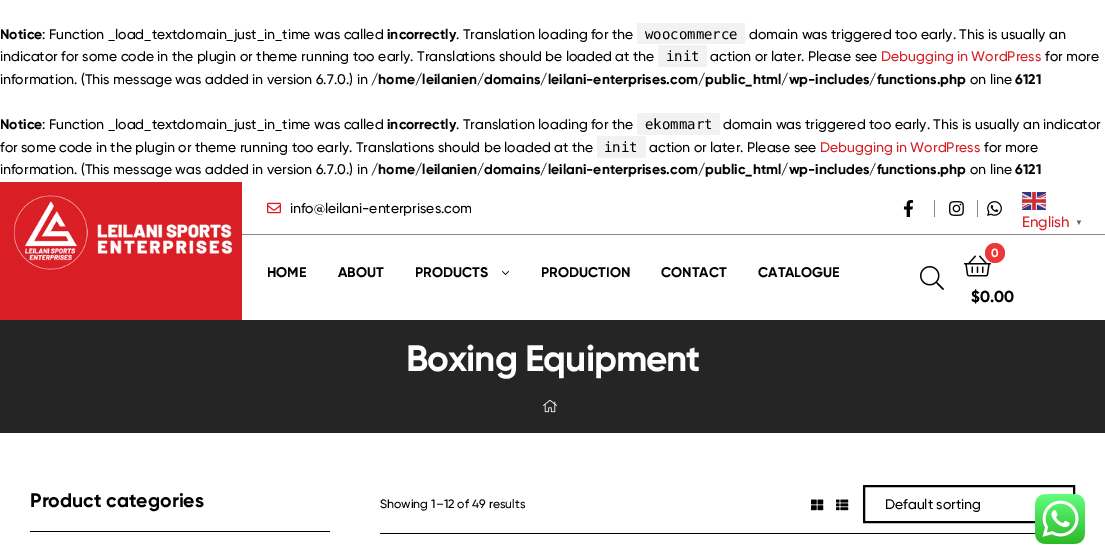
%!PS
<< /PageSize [1105 559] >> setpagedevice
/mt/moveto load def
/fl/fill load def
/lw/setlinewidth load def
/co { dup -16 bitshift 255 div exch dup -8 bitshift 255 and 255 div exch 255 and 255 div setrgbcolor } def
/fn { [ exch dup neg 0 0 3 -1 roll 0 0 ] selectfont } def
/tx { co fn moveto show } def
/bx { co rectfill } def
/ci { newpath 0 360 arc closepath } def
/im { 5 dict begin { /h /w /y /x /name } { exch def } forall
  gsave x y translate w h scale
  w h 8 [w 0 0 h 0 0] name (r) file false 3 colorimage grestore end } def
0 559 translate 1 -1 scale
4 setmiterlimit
0 0 1105 559 16#FFFFFF bx
637 23 108 21 16#F2F2F2 bx
658 45 49 22 16#F2F2F2 bx
637 113 83 22 16#F2F2F2 bx
597 136 49 22 16#F2F2F2 bx
0 182 242 138 16#D91E25 bx
(media/1.raw) 13 194 219 77 im
(media/2.raw) 267 202 14 12 im
(media/3.raw) 903 200 11 17 im
934 200 1 17 16#888888 bx
(media/4.raw) 949 201 15 15 im
977 200 1 17 16#888888 bx
(media/5.raw) 987 201 15 15 im
(media/6.raw) 1022 192 24 18 im
242 234 863 1 16#888888 bx
(media/7.raw) 502 271 7 4 im
(media/8.raw) 920 266 24 24 im
(media/9.raw) 964 255 27 22 im
16#EF3636 co
995 253 10 ci fl
0 320 1105 113 16#252525 bx
(media/10.raw) 543 400 14 13 im
30 531 300 1 16#000000 bx
380 533 656 1 16#000000 bx
(media/11.raw) 811 499 13 12 im
(media/12.raw) 836 499 13 12 im
2 lw
864 486 210 36 rectstroke
(media/13.raw) 1035 494 50 50 im
(Notice) 0 39 /Gilroy-Bold 14 16#000000 tx
(: Function _load_textdomain_just_in_time was called) 42 39 /Gilroy-Medium 14 16#000000 tx
(incorrectly) 387 39 /Gilroy-Bold 14 16#000000 tx
(. Translation loading for the) 456 39 /Gilroy-Medium 14 16#000000 tx
(woocommerce) 645 39 /DejaVuSansMono-Regular 14 16#000000 tx
(domain was triggered too early. This is usually an) 749 39 /Gilroy-Medium 14 16#000000 tx
(indicator for some code in the plugin or theme running too early. Translations should be loaded at the) 0 61 /Gilroy-Medium 14 16#000000 tx
(init) 666 61 /DejaVuSansMono-Regular 14 16#000000 tx
(action or later. Please see) 710 61 /Gilroy-Medium 14 16#000000 tx
(Debugging in WordPress) 881 61 /Gilroy-Medium 14 16#D91E25 tx
(for more) 1045 61 /Gilroy-Medium 14 16#000000 tx
(information. \(This message was added in version 6.7.0.\) in) 0 84 /Gilroy-Medium 14 16#000000 tx
(/home/leilanien/domains/leilani-enterprises.com/public_html/wp-includes/functions.php) 371 84 /Gilroy-Bold 14 16#000000 tx
(on line) 970 84 /Gilroy-Medium 14 16#000000 tx
(6121) 1015 84 /Gilroy-Bold 14 16#000000 tx
(Notice) 0 129 /Gilroy-Bold 14 16#000000 tx
(: Function _load_textdomain_just_in_time was called) 42 129 /Gilroy-Medium 14 16#000000 tx
(incorrectly) 387 129 /Gilroy-Bold 14 16#000000 tx
(. Translation loading for the) 456 129 /Gilroy-Medium 14 16#000000 tx
(ekommart) 645 129 /DejaVuSansMono-Regular 14 16#000000 tx
(domain was triggered too early. This is usually an indicator) 723 129 /Gilroy-Medium 14 16#000000 tx
(for some code in the plugin or theme running too early. Translations should be loaded at the) 0 152 /Gilroy-Medium 14 16#000000 tx
(init) 604 152 /DejaVuSansMono-Regular 14 16#000000 tx
(action or later. Please see) 649 152 /Gilroy-Medium 14 16#000000 tx
(Debugging in WordPress) 820 152 /Gilroy-Medium 14 16#D91E25 tx
(for more) 984 152 /Gilroy-Medium 14 16#000000 tx
(information. \(This message was added in version 6.7.0.\) in) 0 174 /Gilroy-Medium 14 16#000000 tx
(/home/leilanien/domains/leilani-enterprises.com/public_html/wp-includes/functions.php) 371 174 /Gilroy-Bold 14 16#000000 tx
(on line) 970 174 /Gilroy-Medium 14 16#000000 tx
(6121) 1015 174 /Gilroy-Bold 14 16#000000 tx
(info@leilani-enterprises.com) 290 213 /Gilroy-Medium 14 16#000000 tx
(English) 1022 227 /Gilroy-Medium 15 16#D91E25 tx
(▼) 1075 225 /LiberationSans-Bold 8 16#666666 tx
(HOME) 267 277 /Gilroy-Bold 14 16#000000 tx
(ABOUT) 338 277 /Gilroy-Bold 14 16#000000 tx
(PRODUCTS) 415 277 /Gilroy-Bold 14 16#000000 tx
(PRODUCTION) 541 277 /Gilroy-Bold 14 16#000000 tx
(CONTACT) 661 277 /Gilroy-Bold 14 16#000000 tx
(CATALOGUE) 758 277 /Gilroy-Bold 14 16#000000 tx
(0) 991 257 /Gilroy-Bold 12 16#FFFFFF tx
($0.00) 971 302 /Gilroy-Bold 16 16#000000 tx
/Gilroy-Bold 36.75 fn
16#FFFFFF co
406 371 mt -1 0 (Boxing Equipment) ashow
(Product categories) 30 507 /Gilroy-Bold 19.5 16#000000 tx
(Showing 1–12 of 49 results) 380 508 /Gilroy-Medium 12.25 16#000000 tx
(Default sorting) 885 509 /Gilroy-Medium 14 16#000000 tx
showpage
